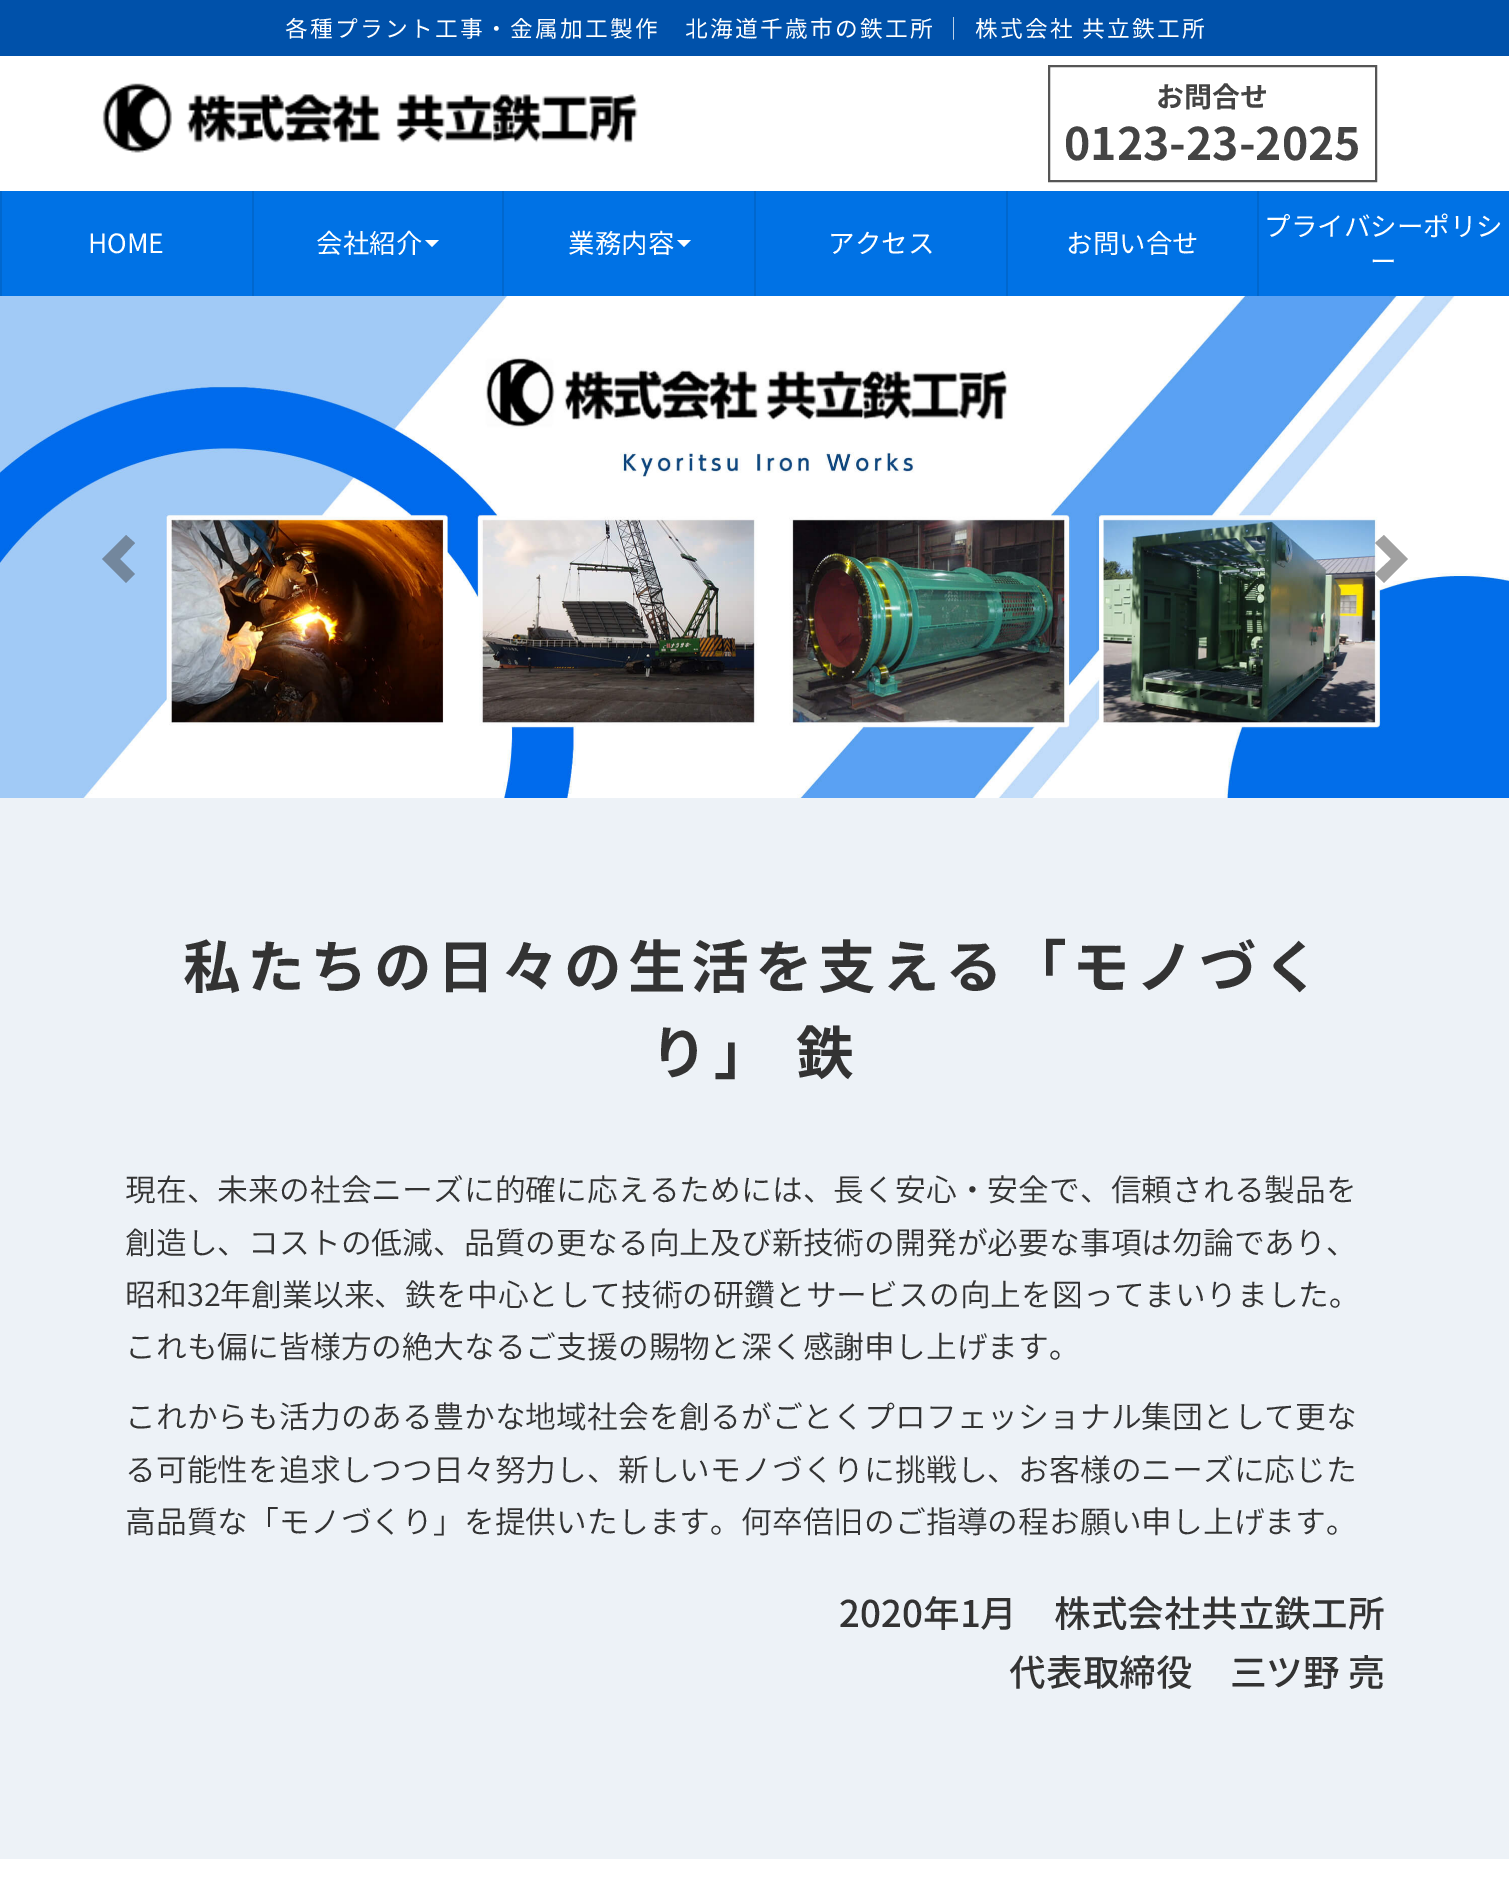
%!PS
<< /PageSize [1509 1892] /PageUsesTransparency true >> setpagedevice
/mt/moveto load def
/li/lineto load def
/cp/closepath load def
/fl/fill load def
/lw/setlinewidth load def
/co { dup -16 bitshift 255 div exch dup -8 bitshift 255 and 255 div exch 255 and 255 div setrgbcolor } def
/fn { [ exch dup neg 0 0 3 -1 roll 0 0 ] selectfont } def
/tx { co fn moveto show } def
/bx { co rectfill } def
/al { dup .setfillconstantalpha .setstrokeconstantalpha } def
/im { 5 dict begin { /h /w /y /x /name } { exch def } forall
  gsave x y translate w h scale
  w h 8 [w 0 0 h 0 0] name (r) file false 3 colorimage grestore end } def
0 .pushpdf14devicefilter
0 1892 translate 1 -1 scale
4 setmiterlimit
0 0 1509 1892 16#FFFFFF bx
0 0 1509 56 16#0051AA bx
(media/1.raw) 102 83 536 70 im
16#555555 co
2 lw
1049 66 327 115 rectstroke
2 191 1507 105 16#0072E5 bx
252 191 2 105 16#0067CE bx
0 191 2 105 16#0067CE bx
502 191 2 105 16#0067CE bx
16#FFFFFF co
425 240 mt 439 240 li 432 247 li cp fl
754 191 2 105 16#0067CE bx
16#FFFFFF co
677 240 mt 691 240 li 684 247 li cp fl
1006 191 2 105 16#0067CE bx
1257 191 2 105 16#0067CE bx
(media/2.raw) 0 296 1509 502 im
16#73879D co
135 543 mt 120 559 li 135 574 li 126 583 li 102 559 li 126 535 li cp fl
0.5 al
16#444444 co
1408 559 mt 1384 583 li 1375 574 li 1391 559 li 1375 543 li 1384 535 li cp fl
1 al
0 798 1509 1061 16#EDF2F7 bx
/NotoSansJP-Regular 22.75 fn
16#FFFFFF co
285 37 mt 2.25 0 (各種プラント工事・金属加工製作　北海道千歳市の鉄工所 ｜ 株式会社 共立鉄工所) ashow
(お問合せ) 1156 107 /NotoSansJP-Bold 28 16#444444 tx
(0123-23-2025) 1064 160 /NotoSansJP-Bold 44.75 16#444444 tx
(HOME) 88 253 /NotoSansJP-Regular 26.5 16#FFFFFF tx
(会社紹介) 316 253 /NotoSansJP-Regular 26.5 16#FFFFFF tx
(業務内容) 568 253 /NotoSansJP-Regular 26.5 16#FFFFFF tx
(アクセス) 828 253 /NotoSansJP-Regular 26.5 16#FFFFFF tx
(お問い合せ) 1066 253 /NotoSansJP-Regular 26.5 16#FFFFFF tx
(プライバシーポリシ) 1264 236 /NotoSansJP-Regular 26.5 16#FFFFFF tx
(ー) 1370 271 /NotoSansJP-Regular 26.5 16#FFFFFF tx
/NotoSansJP-Bold 57.75 fn
16#333333 co
183 988 mt 5.75 0 (私たちの日々の生活を支える「モノづく) ashow
650 1074 mt 5.75 0 (り」 鉄) ashow
(現在、未来の社会ニーズに的確に応えるためには、長く安心・安全で、信頼される製品を) 125 1201 /NotoSansJP-Light 30.8 16#333333 tx
(創造し、コストの低減、品質の更なる向上及び新技術の開発が必要な事項は勿論であり、) 125 1254 /NotoSansJP-Light 30.8 16#333333 tx
(昭和32年創業以来、鉄を中心として技術の研鑽とサービスの向上を図ってまいりました。) 125 1306 /NotoSansJP-Light 30.8 16#333333 tx
(これも偏に皆様方の絶大なるご支援の賜物と深く感謝申し上げます。) 125 1358 /NotoSansJP-Light 30.8 16#333333 tx
(これからも活力のある豊かな地域社会を創るがごとくプロフェッショナル集団として更な) 125 1428 /NotoSansJP-Light 30.8 16#333333 tx
(る可能性を追求しつつ日々努力し、新しいモノづくりに挑戦し、お客様のニーズに応じた) 125 1481 /NotoSansJP-Light 30.8 16#333333 tx
(高品質な「モノづくり」を提供いたします。何卒倍旧のご指導の程お願い申し上げます。) 125 1533 /NotoSansJP-Light 30.8 16#333333 tx
(2020年1月　株式会社共立鉄工所) 839 1627 /NotoSansJP-Medium 36.75 16#333333 tx
(代表取締役　三ツ野 亮) 1009 1686 /NotoSansJP-Medium 36.75 16#333333 tx
.poppdf14devicefilter showpage
